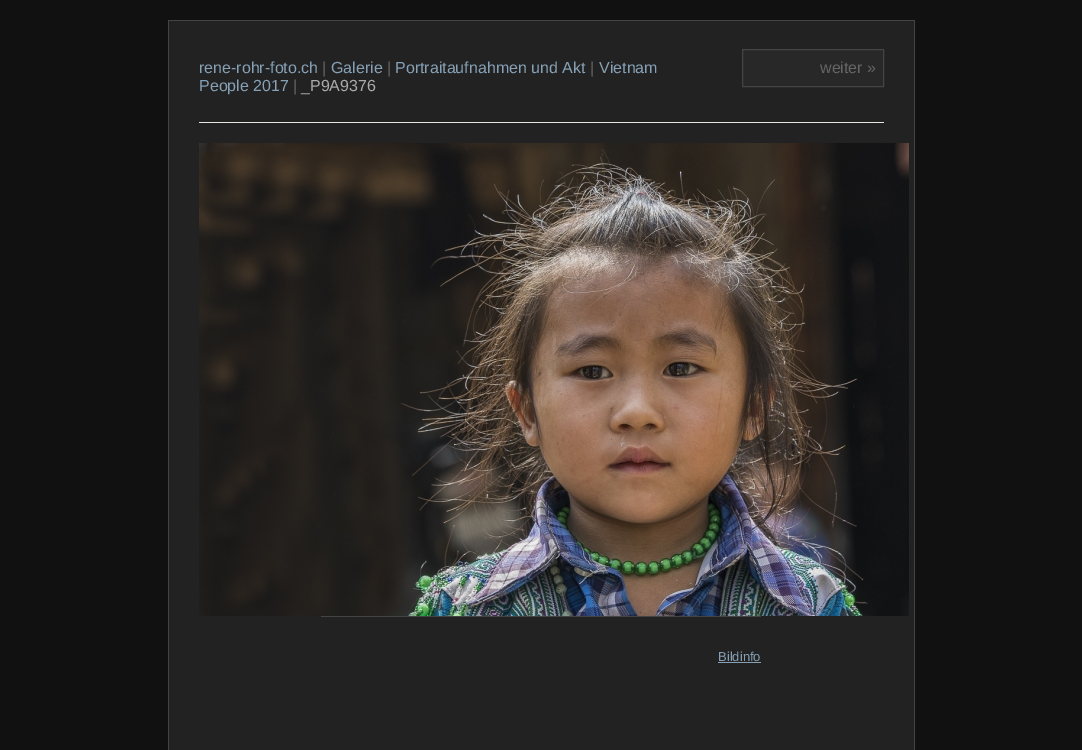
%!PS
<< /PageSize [1082 750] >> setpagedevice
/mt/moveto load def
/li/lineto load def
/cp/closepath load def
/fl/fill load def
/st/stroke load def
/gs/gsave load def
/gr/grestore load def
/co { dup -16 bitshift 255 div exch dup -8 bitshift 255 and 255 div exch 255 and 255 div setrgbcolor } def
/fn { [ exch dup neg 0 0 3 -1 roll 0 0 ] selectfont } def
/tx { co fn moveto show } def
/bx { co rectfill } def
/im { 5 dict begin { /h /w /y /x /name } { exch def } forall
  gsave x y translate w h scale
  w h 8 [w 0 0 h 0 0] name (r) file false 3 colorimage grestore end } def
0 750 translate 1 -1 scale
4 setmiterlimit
0 0 1082 750 16#111111 bx
169 21 745 729 16#222222 bx
168 20 747 1 16#444444 bx
914 20 1 730 16#444444 bx
168 20 1 730 16#444444 bx
199 122 685 1 16#E6E6DF bx
16#282828 co
742.5 49.5 mt 883.5 49.5 li 883.5 86.5 li 742.5 86.5 li cp gs fl gr
16#444444 co
st
(media/1.raw) 199 143 710 473 im
321 616 440 1 16#444444 bx
718 662 43 1 16#86A1B6 bx
(rene-rohr-foto.ch) 199 73 /LiberationSans-Regular 16 16#86A1B6 tx
(|) 322 73 /LiberationSans-Regular 16 16#666666 tx
(Galerie) 331 73 /LiberationSans-Regular 16 16#86A1B6 tx
(|) 387 73 /LiberationSans-Regular 16 16#666666 tx
(Portraitaufnahmen und Akt) 395 73 /LiberationSans-Regular 16 16#86A1B6 tx
(|) 590 73 /LiberationSans-Regular 16 16#666666 tx
(Vietnam) 599 73 /LiberationSans-Regular 16 16#86A1B6 tx
(People 2017) 199 91 /LiberationSans-Regular 16 16#86A1B6 tx
(|) 293 91 /LiberationSans-Regular 16 16#666666 tx
(_P9A9376) 301 91 /LiberationSans-Regular 16 16#AAAAAA tx
(weiter ») 820 73 /LiberationSans-Regular 16 16#666666 tx
(Bildinfo) 718 661 /LiberationSans-Regular 13 16#86A1B6 tx
showpage
